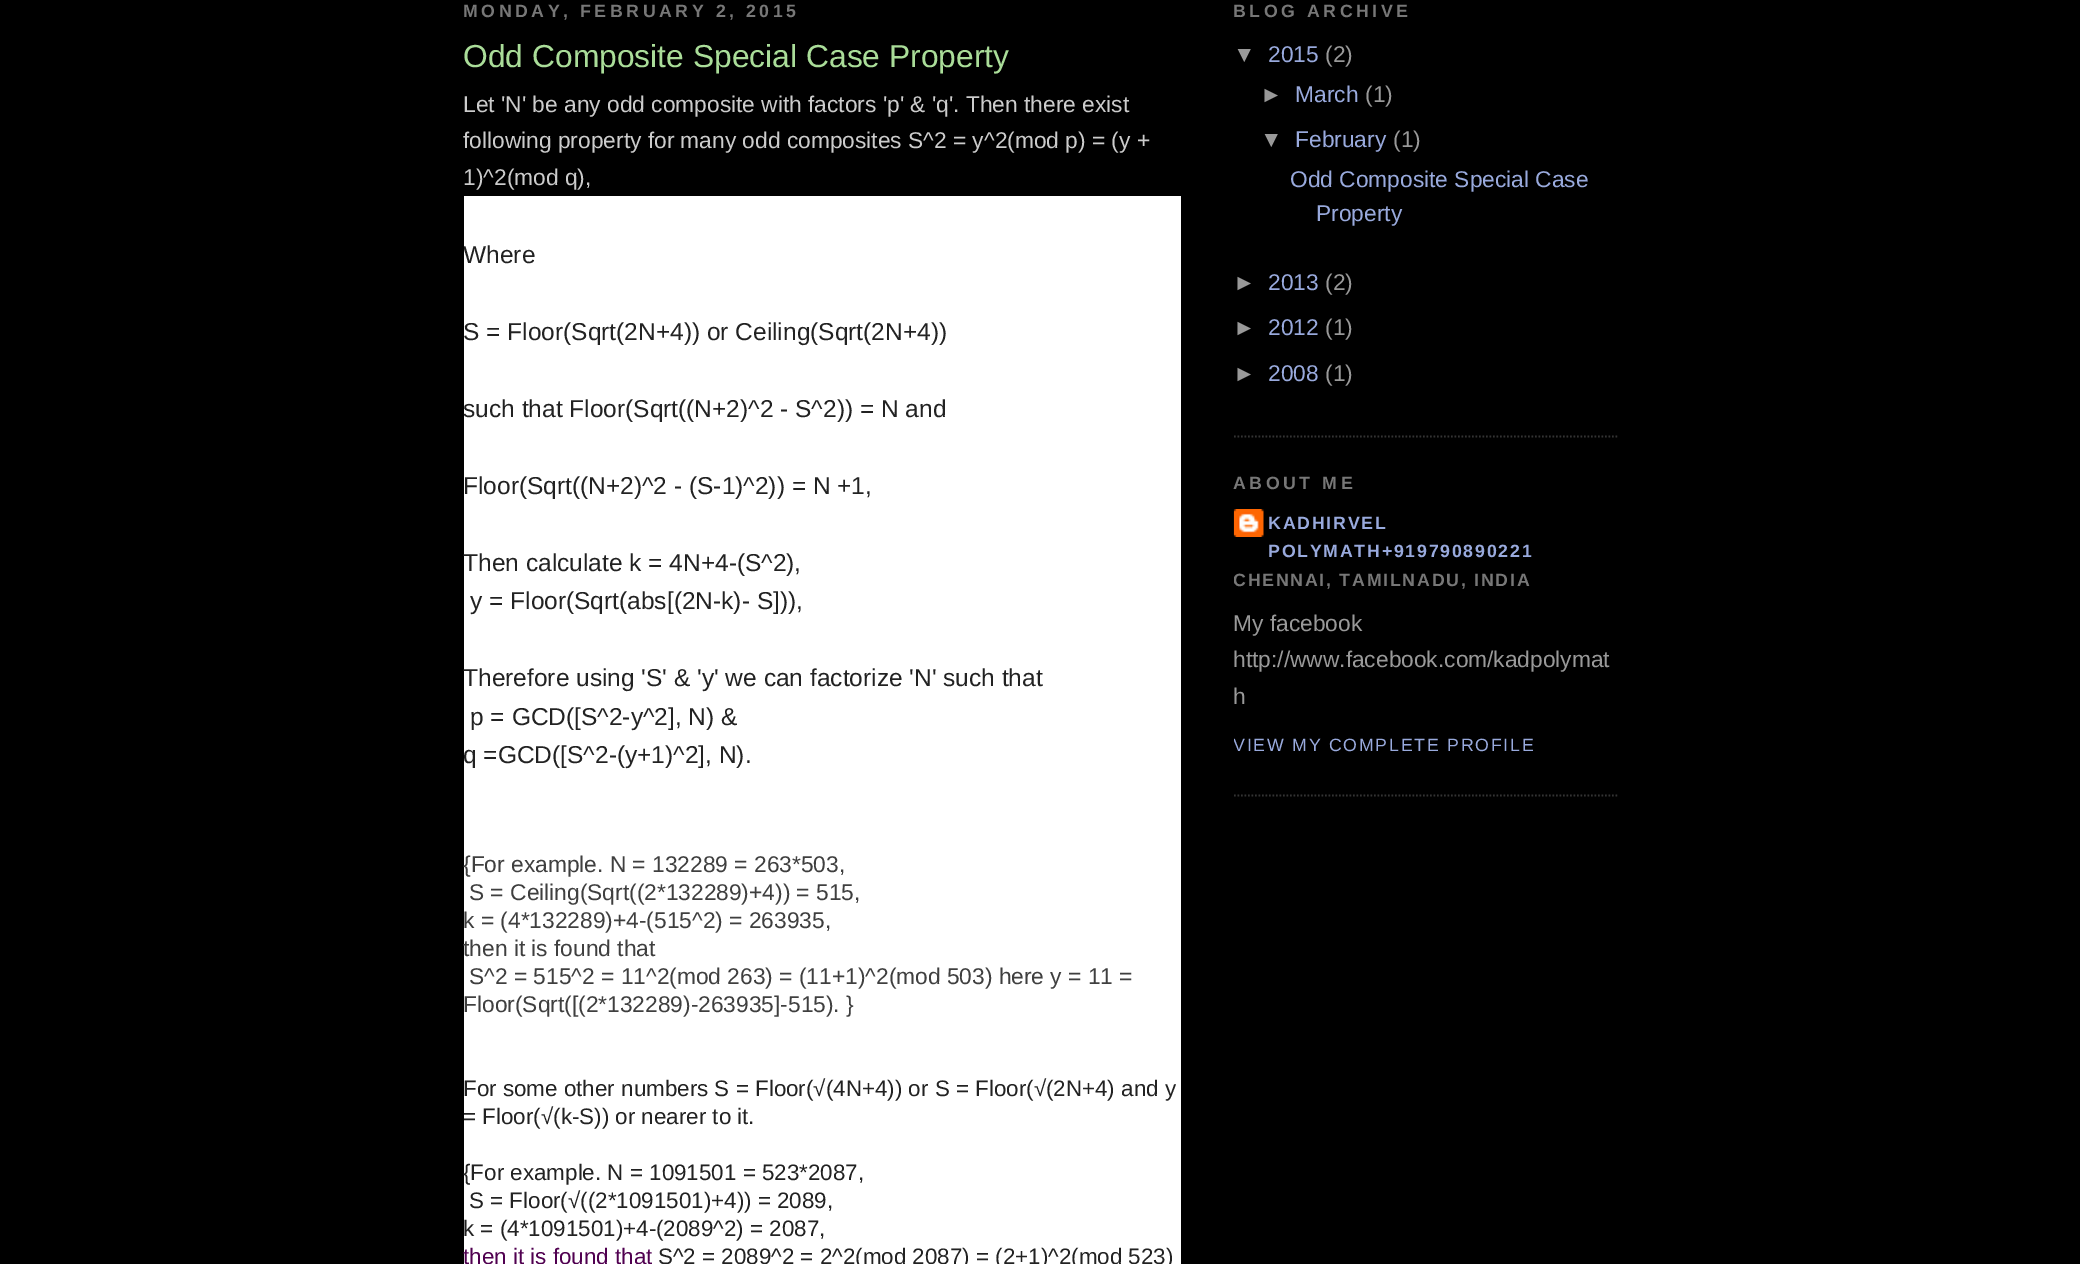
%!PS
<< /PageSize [2080 1264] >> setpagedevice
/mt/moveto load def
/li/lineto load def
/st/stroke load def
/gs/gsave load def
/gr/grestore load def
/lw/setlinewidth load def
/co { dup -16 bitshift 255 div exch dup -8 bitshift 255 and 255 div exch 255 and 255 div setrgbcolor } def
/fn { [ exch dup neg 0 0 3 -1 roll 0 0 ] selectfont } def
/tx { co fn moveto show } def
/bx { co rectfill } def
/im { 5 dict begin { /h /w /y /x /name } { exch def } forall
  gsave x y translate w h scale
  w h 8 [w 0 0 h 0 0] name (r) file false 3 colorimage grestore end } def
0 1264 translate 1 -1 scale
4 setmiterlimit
0 0 2080 1264 16#000000 bx
464 196 717 1068 16#FFFFFF bx
16#333333 co
1.8 lw
[1.75 1.75] 0 setdash
1234 436.5 mt 1619 436.5 li st
1234 795.5 mt 1619 795.5 li st
(media/1.raw) 1233 509 31 28 im
/LiberationSans-Bold 17.75 fn
16#777777 co
463 17 mt 3.55 0 (MONDAY, FEBRUARY 2, 2015) ashow
(Odd Composite Special Case Property) 463 67 /LiberationSans-Regular 31.8 16#AADD99 tx
(Let 'N' be any odd composite with factors 'p' & 'q'. Then there exist) 463 112 /LiberationSans-Regular 22.75 16#CCCCCC tx
(following property for many odd composites S^2 = y^2\(mod p\) = \(y +) 463 148 /LiberationSans-Regular 22.75 16#CCCCCC tx
(1\)^2\(mod q\),) 463 185 /LiberationSans-Regular 22.75 16#CCCCCC tx
gs
464 0 717 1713 rectclip
(Where) 463 263 /LiberationSans-Regular 24.5 16#222222 tx
gr
(S = Floor\(Sqrt\(2N+4\)\) or Ceiling\(Sqrt\(2N+4\)\)) 463 340 /LiberationSans-Regular 24.5 16#222222 tx
(such that Floor\(Sqrt\(\(N+2\)^2 - S^2\)\) = N and) 463 417 /LiberationSans-Regular 24.5 16#222222 tx
(Floor\(Sqrt\(\(N+2\)^2 - \(S-1\)^2\)\) = N +1,) 463 494 /LiberationSans-Regular 24.5 16#222222 tx
(Then calculate k = 4N+4-\(S^2\),) 463 571 /LiberationSans-Regular 24.5 16#222222 tx
(y = Floor\(Sqrt\(abs[\(2N-k\)- S]\)\),) 470 609 /LiberationSans-Regular 24.5 16#222222 tx
(Therefore using 'S' & 'y' we can factorize 'N' such that) 463 686 /LiberationSans-Regular 24.5 16#222222 tx
(p = GCD\([S^2-y^2], N\) &) 470 725 /LiberationSans-Regular 24.5 16#222222 tx
(q =GCD\([S^2-\(y+1\)^2], N\).) 463 763 /LiberationSans-Regular 24.5 16#222222 tx
({For example. N = 132289 = 263*503,) 463 872 /LiberationSans-Regular 22.75 16#3F3F3F tx
(S = Ceiling\(Sqrt\(\(2*132289\)+4\)\) = 515,) 469 900 /LiberationSans-Regular 22.75 16#3F3F3F tx
(k = \(4*132289\)+4-\(515^2\) = 263935,) 463 928 /LiberationSans-Regular 22.75 16#3F3F3F tx
(then it is found that) 463 956 /LiberationSans-Regular 22.75 16#3F3F3F tx
(S^2 = 515^2 = 11^2\(mod 263\) = \(11+1\)^2\(mod 503\) here y = 11 =) 469 984 /LiberationSans-Regular 22.75 16#3F3F3F tx
(Floor\(Sqrt\([\(2*132289\)-263935]-515\). }) 463 1012 /LiberationSans-Regular 22.75 16#3F3F3F tx
(For some other numbers S = Floor\(√\(4N+4\)\) or S = Floor\(√\(2N+4\) and y) 463 1096 /LiberationSans-Regular 22.4 16#222222 tx
(= Floor\(√\(k-S\)\) or nearer to it.) 463 1124 /LiberationSans-Regular 22.4 16#222222 tx
({For example. N = 1091501 = 523*2087,) 463 1180 /LiberationSans-Regular 22.4 16#222222 tx
(S = Floor\(√\(\(2*1091501\)+4\)\) = 2089,) 469 1208 /LiberationSans-Regular 22.4 16#222222 tx
(k = \(4*1091501\)+4-\(2089^2\) = 2087,) 463 1236 /LiberationSans-Regular 22.4 16#222222 tx
(then it is found that) 463 1264 /LiberationSans-Regular 22.4 16#500050 tx
(S^2 = 2089^2 = 2^2\(mod 2087\) = \(2+1\)^2\(mod 523\)) 658 1264 /LiberationSans-Regular 22.4 16#222222 tx
/LiberationSans-Bold 17.75 fn
16#777777 co
1233 17 mt 3.55 0 (BLOG ARCHIVE) ashow
(▼) 1233 62 /LiberationSans-Regular 22.75 16#999999 tx
(2015) 1268 62 /LiberationSans-Regular 22.75 16#99AADD tx
(\(2\)) 1325 62 /LiberationSans-Regular 22.75 16#999999 tx
(►) 1260 102 /LiberationSans-Regular 22.75 16#999999 tx
(March) 1295 102 /LiberationSans-Regular 22.75 16#99AADD tx
(\(1\)) 1365 102 /LiberationSans-Regular 22.75 16#999999 tx
(▼) 1260 147 /LiberationSans-Regular 22.75 16#999999 tx
(February) 1295 147 /LiberationSans-Regular 22.75 16#99AADD tx
(\(1\)) 1393 147 /LiberationSans-Regular 22.75 16#999999 tx
(Odd Composite Special Case) 1290 187 /LiberationSans-Regular 22.75 16#99AADD tx
(Property) 1316 221 /LiberationSans-Regular 22.75 16#99AADD tx
(►) 1233 290 /LiberationSans-Regular 22.75 16#999999 tx
(2013) 1268 290 /LiberationSans-Regular 22.75 16#99AADD tx
(\(2\)) 1325 290 /LiberationSans-Regular 22.75 16#999999 tx
(►) 1233 335 /LiberationSans-Regular 22.75 16#999999 tx
(2012) 1268 335 /LiberationSans-Regular 22.75 16#99AADD tx
(\(1\)) 1325 335 /LiberationSans-Regular 22.75 16#999999 tx
(►) 1233 381 /LiberationSans-Regular 22.75 16#999999 tx
(2008) 1268 381 /LiberationSans-Regular 22.75 16#99AADD tx
(\(1\)) 1325 381 /LiberationSans-Regular 22.75 16#999999 tx
/LiberationSans-Bold 17.75 fn
16#777777 co
1233 489 mt 3.55 0 (ABOUT ME) ashow
16#99AADD co
1268 529 mt 1.75 0 (KADHIRVEL) ashow
1268 557 mt 1.75 0 (POLYMATH+919790890221) ashow
gs
1234 0 385 831 rectclip
16#777777 co
1233 586 mt 1.75 0 (CHENNAI, TAMILNADU, INDIA) ashow
gr
(My facebook) 1233 631 /LiberationSans-Regular 22.75 16#999999 tx
(http://www.facebook.com/kadpolymat) 1233 667 /LiberationSans-Regular 22.75 16#999999 tx
(h) 1233 704 /LiberationSans-Regular 22.75 16#999999 tx
gs
1234 0 385 831 rectclip
/LiberationSans-Regular 17.75 fn
16#99AADD co
1233 751 mt 1.75 0 (VIEW MY COMPLETE PROFILE) ashow
gr
showpage
